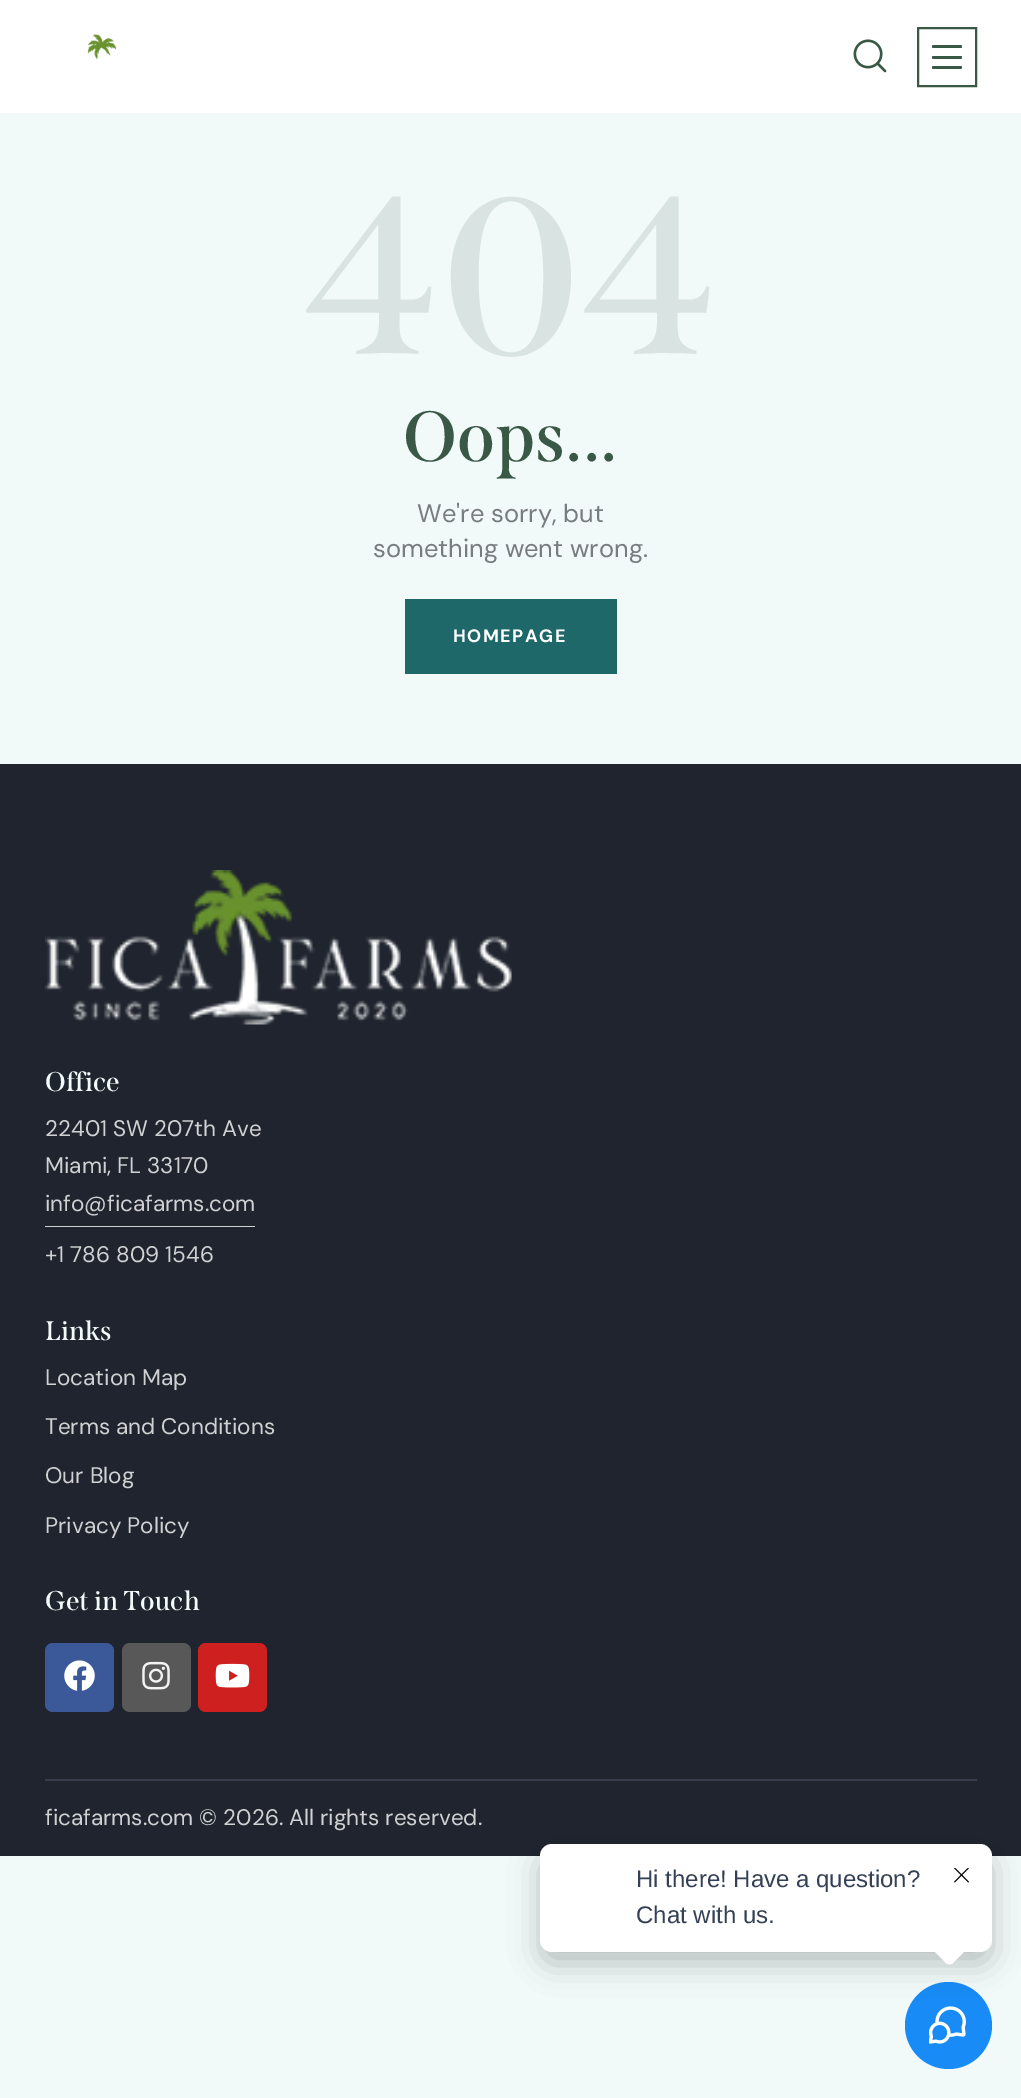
%!PS
<< /PageSize [1021 2098] /PageUsesTransparency true >> setpagedevice
/mt/moveto load def
/li/lineto load def
/ct/curveto load def
/cp/closepath load def
/fl/fill load def
/lw/setlinewidth load def
/co { dup -16 bitshift 255 div exch dup -8 bitshift 255 and 255 div exch 255 and 255 div setrgbcolor } def
/fn { [ exch dup neg 0 0 3 -1 roll 0 0 ] selectfont } def
/tx { co fn moveto show } def
/bx { co rectfill } def
/al { dup .setfillconstantalpha .setstrokeconstantalpha } def
/ci { newpath 0 360 arc closepath } def
/rr { 5 dict begin { /r /h /w /y /x } { exch def } forall
  x r add y moveto x w add y 2 copy h add r arct x w add y h add x 1 index r arct
  x y h add x y r arct x y 2 copy exch w add exch r arct closepath end } def
/sh { 12 dict begin { /a /b /q /h /w /y /x } { exch def } forall gsave /was 0 def
  9 -2 -9 { dup b mul 4 div /e exch def 1 sub .425 mul 2.718 exch exp 1 add a .99 .min exch div /now exch def
    1 1 now sub 1 was sub div sub al /was now def
    w h .min e 2 mul add 0 gt { x e sub y e sub w e 2 mul add h e 2 mul add
      q e add b .6 mul add w h .min 2 div e add .min 0 .max rr fill } if } for grestore end } def
/im { 5 dict begin { /h /w /y /x /name } { exch def } forall
  gsave x y translate w h scale
  w h 8 [w 0 0 h 0 0] name (r) file false 3 colorimage grestore end } def
0 .pushpdf14devicefilter
0 2098 translate 1 -1 scale
4 setmiterlimit
0 0 1021 2098 16#F1F9F9 bx
0 0 1021 113 16#FFFFFF bx
(media/1.raw) 87 34 30 30 im
(media/2.raw) 853 39 34 34 im
16#395846 co
2 lw
918 28 58 58 rectstroke
932 56 30 3 1.5 rr fl
932 45 30 3 1.5 rr fl
932 66 30 3 1.5 rr fl
405 599 212 75 16#1F686A bx
0 764 1021 1092 16#1F242E bx
(media/3.raw) 45 870 467 155 im
45 1226 210 1 16#D0D1D3 bx
16#3B5998 co
45 1643 69 69 8 rr fl
(media/4.raw) 64 1660 31 31 im
16#585858 co
122 1643 69 69 8 rr fl
(media/5.raw) 142 1661 28 29 im
16#CD201F co
198 1643 69 69 8 rr fl
(media/6.raw) 215 1663 35 25 im
45 1779 932 2 16#363C4A bx
16#188BF6 co
948.5 2025.5 43.5 ci fl
(media/8.raw) 929 2006 37 38 im
16#000000 co
540 1856 452 108 12 15 .24 sh
16#FFFFFF co
540 1844 452 108 12 rr fl
953.5 1928.5 mt 966.5 1941.5 li 969 1943.5 969 1947.5 966.5 1949.5 ct 953.5 1962.5 li 951.5 1965 947.5 1965 945.5 1962.5 ct 932.5 1949.5 li 930 1947.5 930 1943.5 932.5 1941.5 ct 945.5 1928.5 li 947.5 1926 951.5 1926 953.5 1928.5 ct cp fl
(media/7.raw) 954 1868 15 15 im
(404) 306 354 /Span-SemiBold 225 16#D9E4E2 tx
(Oops...) 403 461 /Span-SemiBold 70.5 16#395846 tx
(We're sorry, but) 417 522 /DMSans-Regular 25.5 16#797C7F tx
(something went wrong.) 373 557 /DMSans-Regular 25.5 16#797C7F tx
/DMSans-Bold 18 fn
16#FFFFFF co
453 642 mt 1.5 0 (HOMEPAGE) ashow
(Office) 45 1091 /Span-SemiBold 27 16#F1F9F9 tx
(22401 SW 207th Ave) 45 1136 /DMSans-Regular 22.5 16#D0D1D3 tx
(Miami, FL 33170) 45 1173 /DMSans-Regular 22.5 16#D0D1D3 tx
(info@ficafarms.com) 45 1211 /DMSans-Regular 22.5 16#D0D1D3 tx
(+1 786 809 1546) 45 1262 /DMSans-Regular 22.5 16#D0D1D3 tx
(Links) 45 1340 /Span-SemiBold 27 16#F1F9F9 tx
(Location Map) 45 1385 /DMSans-Regular 22.5 16#D0D1D3 tx
(Terms and Conditions) 45 1434 /DMSans-Regular 22.5 16#D0D1D3 tx
(Our Blog) 45 1483 /DMSans-Regular 22.5 16#D0D1D3 tx
(Privacy Policy) 45 1533 /DMSans-Regular 22.5 16#D0D1D3 tx
(Get in Touch) 45 1610 /Span-SemiBold 27 16#F1F9F9 tx
(ficafarms.com © 2026. All rights reserved.) 45 1825 /DMSans-Regular 22.5 16#D0D1D3 tx
(Hi there! Have a question?) 636 1887 /LiberationSans-Regular 24 16#344054 tx
(Chat with us.) 636 1923 /LiberationSans-Regular 24 16#344054 tx
.poppdf14devicefilter showpage
